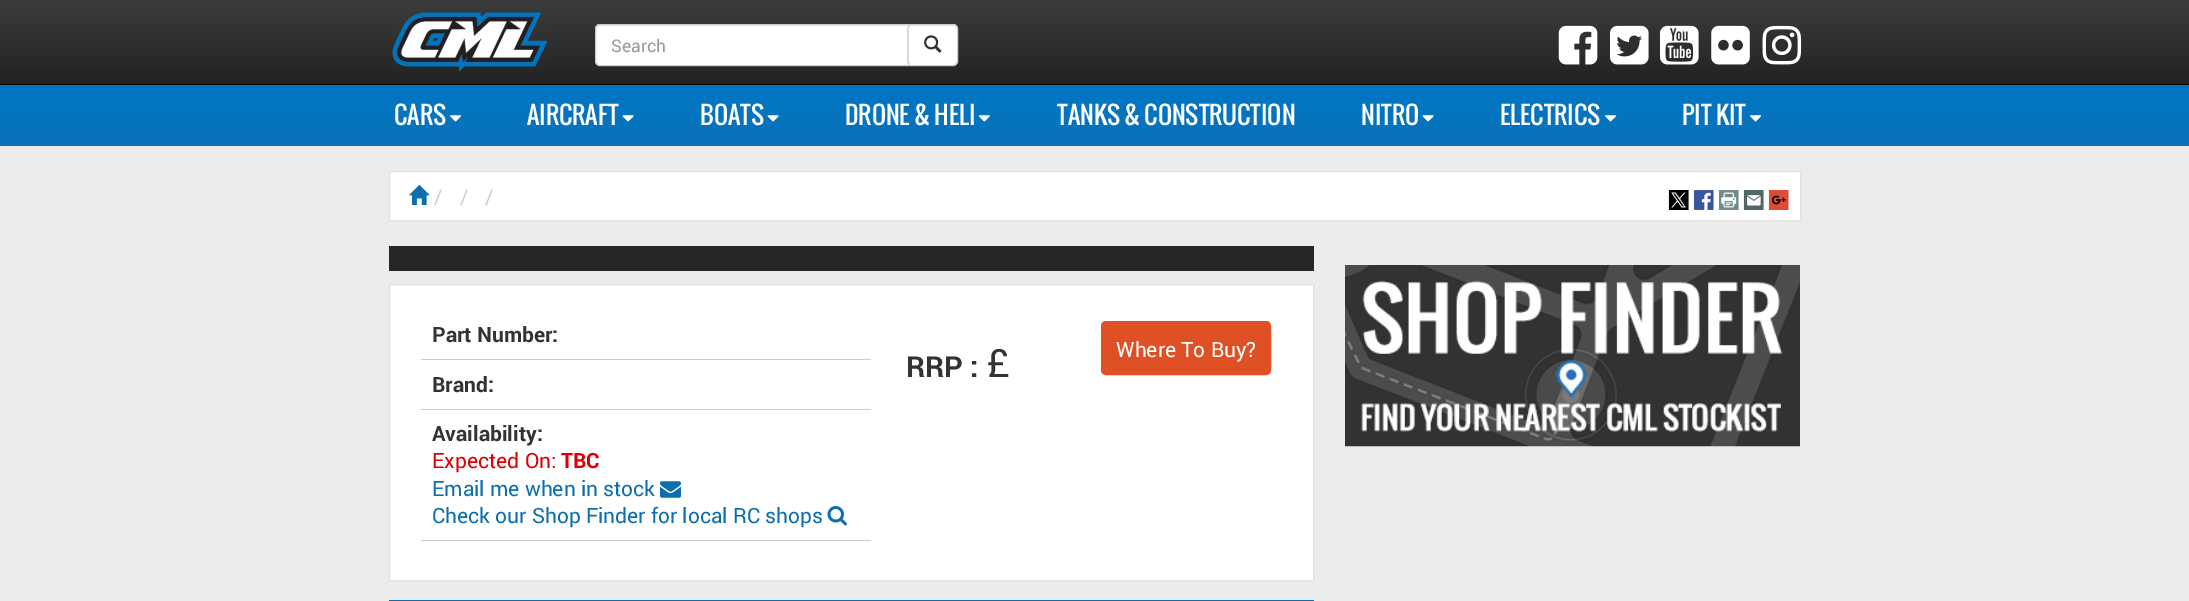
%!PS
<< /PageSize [2189 601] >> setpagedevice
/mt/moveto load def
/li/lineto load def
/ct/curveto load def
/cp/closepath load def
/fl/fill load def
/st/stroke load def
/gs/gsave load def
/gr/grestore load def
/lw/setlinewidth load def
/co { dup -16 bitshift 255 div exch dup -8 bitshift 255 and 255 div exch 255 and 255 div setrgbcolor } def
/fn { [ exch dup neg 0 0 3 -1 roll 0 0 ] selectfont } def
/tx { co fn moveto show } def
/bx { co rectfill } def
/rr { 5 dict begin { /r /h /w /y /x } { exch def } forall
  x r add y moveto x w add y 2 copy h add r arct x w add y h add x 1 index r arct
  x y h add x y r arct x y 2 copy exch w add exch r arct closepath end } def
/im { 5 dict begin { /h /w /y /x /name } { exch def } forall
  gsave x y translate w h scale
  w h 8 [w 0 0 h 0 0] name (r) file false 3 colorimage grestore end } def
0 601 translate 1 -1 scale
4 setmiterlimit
0 0 2189 601 16#ECECEC bx
gs 0 0 mt 2189 0 li 2189 84 li 0 84 li cp clip newpath
<< /ShadingType 2 /ColorSpace /DeviceRGB /Coords [1095 0 1095 84] /Extend [true true] /Function << /FunctionType 2 /Domain [0 1] /C0 [.235 .235 .235] /C1 [.133 .133 .133] /N 1 >> >> shfill gr
0 84 2189 1 16#080808 bx
(media/1.raw) 392 12 156 60 im
16#FFFFFF co
595 24 363 42 5 rr fl
16#ECECEC co
600 26 mt 954 26 li 956 28 li 956 30 li 955 27 li 953 25 li 600 25 li 597 25 596 27 596 30 ct 596 28 598 26 600 26 ct cp fl
16#CCCCCC co
595.5 24.5 362 41 4.5 rr st
1.2 lw
909.5 64.5 mt 908.5 63.5 908 62.5 908 61 ct 908 29 li 908 27.5 908.5 26.5 909.5 25.5 ct st
(media/2.raw) 924 35 18 18 im
(media/3.raw) 1558 25 40 40 im
(media/4.raw) 1610 25 39 40 im
(media/5.raw) 1660 25 39 40 im
(media/6.raw) 1711 25 39 40 im
(media/7.raw) 1762 25 40 40 im
gs 0 85 mt 2189 85 li 2189 146 li 0 146 li cp clip newpath
<< /ShadingType 2 /ColorSpace /DeviceRGB /Coords [1095 84 1095 146] /Extend [true true] /Function << /FunctionType 2 /Domain [0 1] /C0 [0 .467 .773] /C1 [.039 .443 .725] /N 1 >> >> shfill gr
(media/8.raw) 450 115 12 7 im
(media/9.raw) 622 115 12 7 im
(media/9.raw) 767 115 12 7 im
(media/10.raw) 978 115 12 7 im
(media/9.raw) 1422 115 12 7 im
(media/8.raw) 1605 115 12 7 im
(media/8.raw) 1750 115 12 7 im
16#FFFFFF co
389.5 171.5 mt 1800.5 171.5 li 1800.5 220.5 li 389.5 220.5 li cp gs fl gr
16#E1E1E1 co
1 lw
st
(media/11.raw) 408 184 22 21 im
(media/12.raw) 1668 190 21 20 im
(media/13.raw) 1693 190 21 20 im
(media/14.raw) 1718 190 21 20 im
(media/15.raw) 1743 190 21 20 im
(media/16.raw) 1768 190 21 20 im
389 246 925 25 16#262626 bx
16#FFFFFF co
389.5 284.5 mt 1313.5 284.5 li 1313.5 580.5 li 389.5 580.5 li cp gs fl gr
16#E1E1E1 co
st
421 359 450 1 16#CCCCCC bx
421 409 450 1 16#CCCCCC bx
(media/17.raw) 660 481 21 17 im
(media/18.raw) 827 506 20 20 im
421 540 450 1 16#CCCCCC bx
16#E05025 co
1102.5 322.5 167 51 3.5 rr gs fl gr
3 lw
st
389 600 925 1 16#0A6EAF bx
(media/19.raw) 1345 265 455 182 im
(Search) 611 52 /roboto-Regular 17.5 16#999999 tx
(CARS) 394 125 /Oswald-Regular 24.4 16#FFFFFF tx
(AIRCRAFT) 527 125 /Oswald-Regular 24.4 16#FFFFFF tx
(BOATS) 700 125 /Oswald-Regular 24.4 16#FFFFFF tx
(DRONE & HELI) 845 125 /Oswald-Regular 24.4 16#FFFFFF tx
(TANKS & CONSTRUCTION) 1057 125 /Oswald-Regular 24.4 16#FFFFFF tx
(NITRO) 1361 125 /Oswald-Regular 24.4 16#FFFFFF tx
(ELECTRICS) 1500 125 /Oswald-Regular 24.4 16#FFFFFF tx
(PIT KIT) 1682 125 /Oswald-Regular 24.4 16#FFFFFF tx
(/) 434 204 /roboto-Regular 20 16#CCCCCC tx
(/) 460 204 /roboto-Regular 20 16#CCCCCC tx
(/) 485 204 /roboto-Regular 20 16#CCCCCC tx
(Part Number:) 432 342 /roboto-Bold 21 16#333333 tx
(Brand:) 432 392 /roboto-Bold 21 16#333333 tx
(Availability:) 432 441 /roboto-Bold 21 16#333333 tx
(Expected On:) 432 468 /roboto-Regular 21 16#DB0003 tx
(TBC) 561 468 /roboto-Bold 21 16#DB0003 tx
(Email me when in stock) 432 496 /roboto-Regular 21 16#0A6EAF tx
(Check our Shop Finder for local RC shops) 432 523 /roboto-Regular 21 16#0A6EAF tx
(RRP :) 906 377 /roboto-Bold 29 16#333333 tx
(£) 987 377 /roboto-Regular 39 16#333333 tx
(Where To Buy?) 1116 357 /roboto-Regular 21 16#FFFFFF tx
showpage
